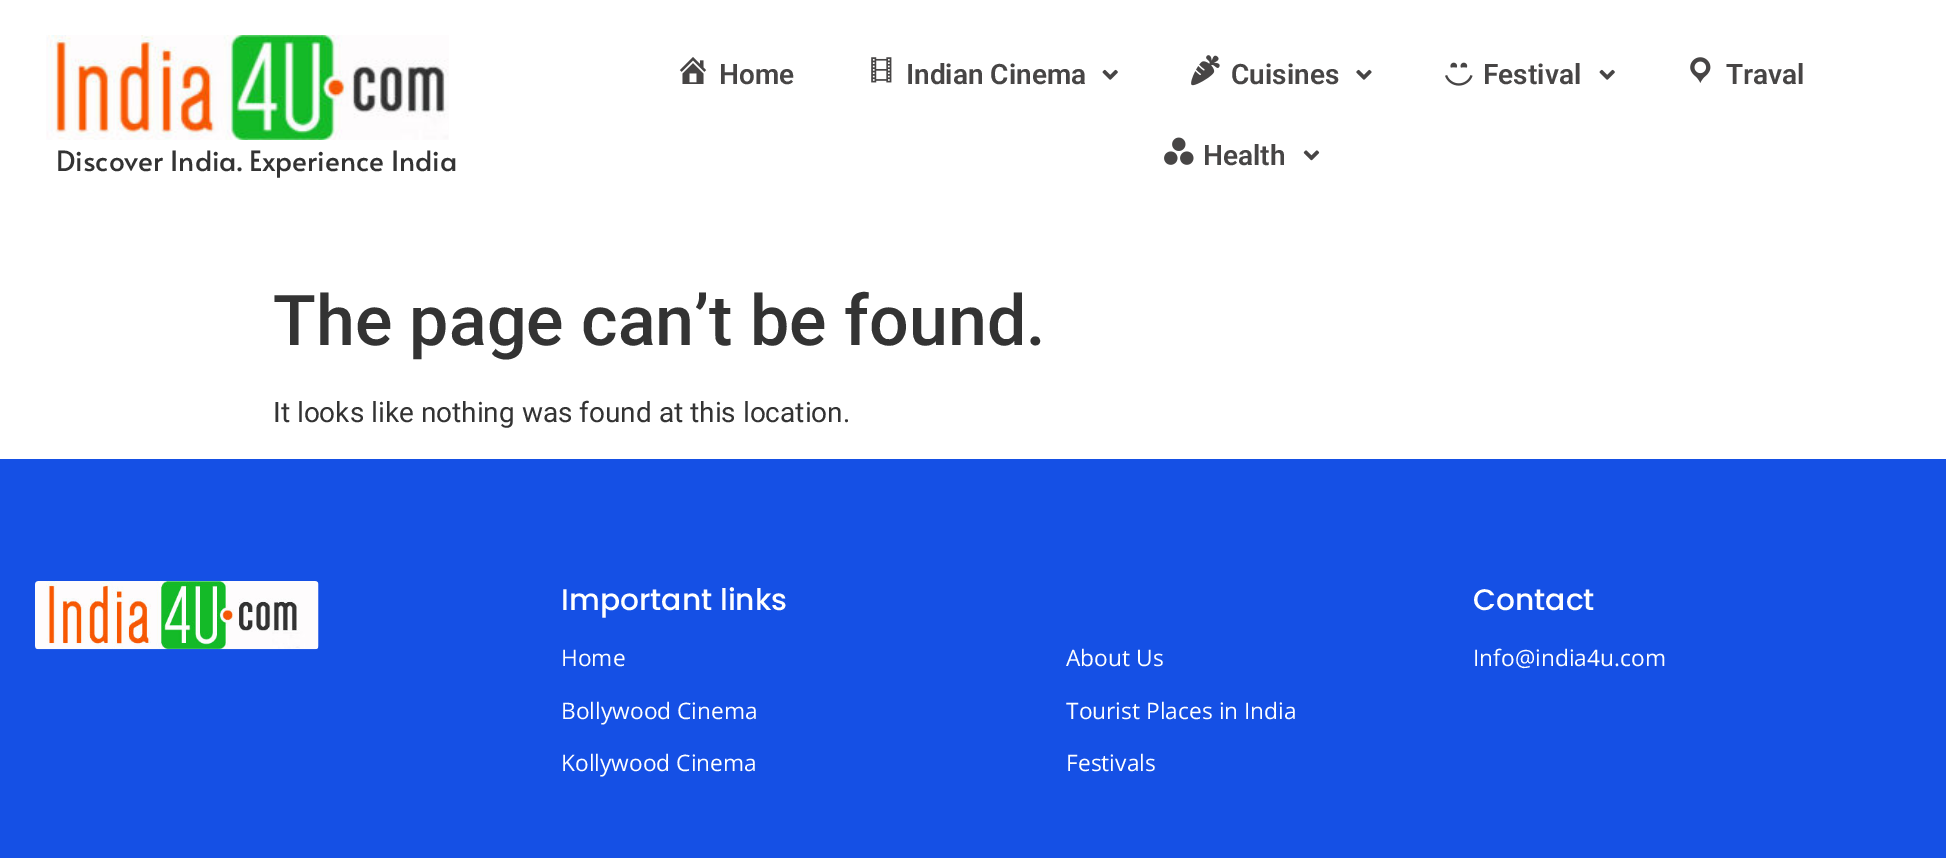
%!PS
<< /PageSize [1946 858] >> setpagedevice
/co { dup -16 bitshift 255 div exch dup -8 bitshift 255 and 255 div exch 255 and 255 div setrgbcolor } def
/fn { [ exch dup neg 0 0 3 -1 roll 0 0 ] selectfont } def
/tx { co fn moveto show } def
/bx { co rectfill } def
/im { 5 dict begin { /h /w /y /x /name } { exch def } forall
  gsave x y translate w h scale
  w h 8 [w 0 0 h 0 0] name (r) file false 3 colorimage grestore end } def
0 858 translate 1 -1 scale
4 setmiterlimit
0 0 1946 858 16#FFFFFF bx
(media/1.raw) 46 35 403 105 im
(media/2.raw) 679 57 28 27 im
(media/3.raw) 871 57 21 26 im
(media/4.raw) 1102 69 16 11 im
(media/5.raw) 1191 55 29 31 im
(media/6.raw) 1356 69 16 11 im
(media/7.raw) 1445 62 28 24 im
(media/4.raw) 1599 69 16 11 im
(media/8.raw) 1690 57 21 26 im
(media/9.raw) 1164 137 30 28 im
(media/10.raw) 1303 150 17 11 im
0 459 1946 399 16#1550E5 bx
(media/11.raw) 35 581 284 69 im
(Discover India. Experience India) 56 171 /Alata-Regular 28 16#333333 tx
(Home) 719 84 /Roboto-SemiBold 28 16#474545 tx
(Indian Cinema) 906 84 /Roboto-SemiBold 28 16#474545 tx
(Cuisines) 1231 84 /Roboto-SemiBold 28 16#474545 tx
(Festival) 1483 84 /Roboto-SemiBold 28 16#474545 tx
(Traval) 1726 84 /Roboto-SemiBold 28 16#474545 tx
(Health) 1203 165 /Roboto-SemiBold 28 16#474545 tx
(The page can’t be found.) 273 345 /Roboto-Medium 70 16#333333 tx
(It looks like nothing was found at this location.) 273 422 /Roboto-Regular 28 16#333333 tx
(Important links) 561 610 /Poppins-Medium 29.75 16#FFFFFF tx
(Home) 561 666 /OpenSans-Regular 22.75 16#FFFFFF tx
(Bollywood Cinema) 561 719 /OpenSans-Regular 22.75 16#FFFFFF tx
(Kollywood Cinema) 561 771 /OpenSans-Regular 22.75 16#FFFFFF tx
(Contact) 1473 610 /Poppins-Medium 29.75 16#FFFFFF tx
(Info@india4u.com) 1473 666 /OpenSans-Regular 22.75 16#FFFFFF tx
(About Us) 1066 666 /OpenSans-Regular 22.75 16#FFFFFF tx
(Tourist Places in India) 1066 719 /OpenSans-Regular 22.75 16#FFFFFF tx
(Festivals) 1066 771 /OpenSans-Regular 22.75 16#FFFFFF tx
showpage
